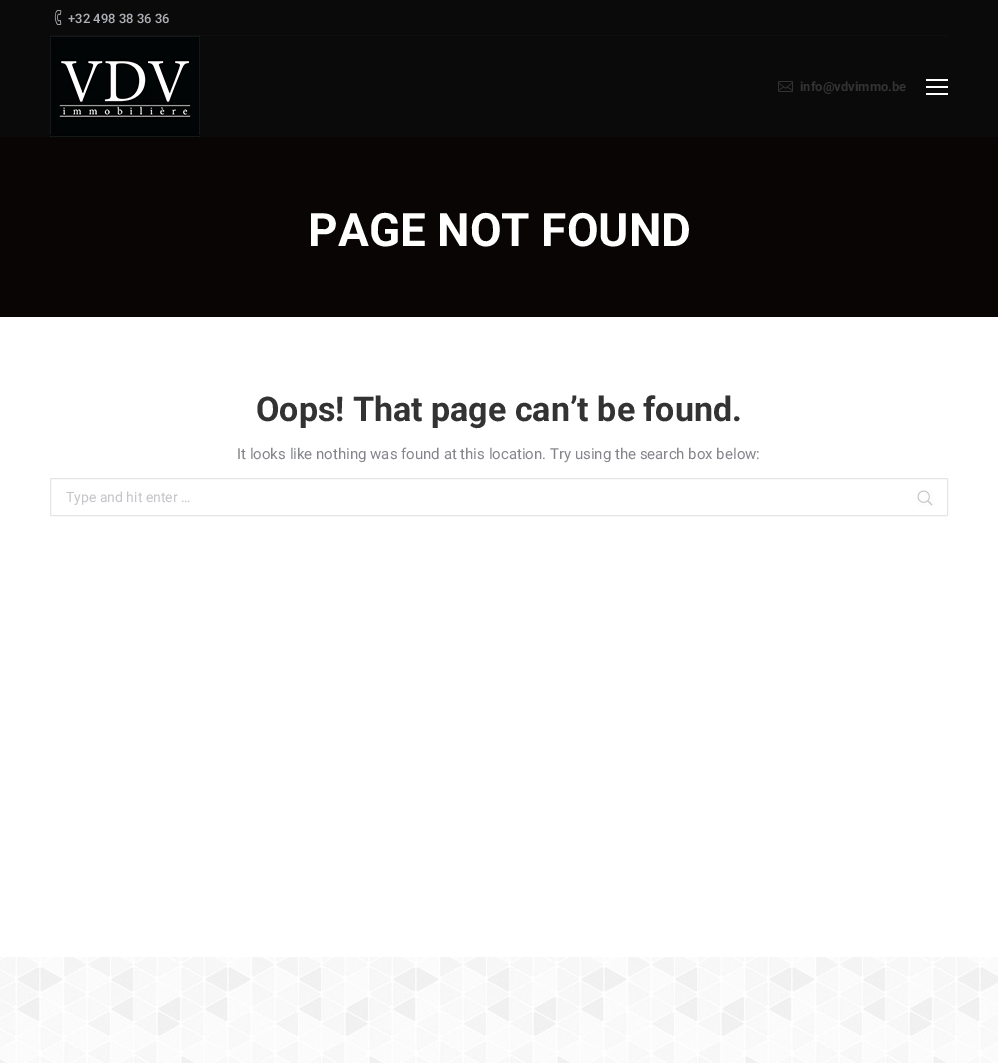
%!PS
<< /PageSize [998 1063] >> setpagedevice
/st/stroke load def
/co { dup -16 bitshift 255 div exch dup -8 bitshift 255 and 255 div exch 255 and 255 div setrgbcolor } def
/fn { [ exch dup neg 0 0 3 -1 roll 0 0 ] selectfont } def
/tx { co fn moveto show } def
/bx { co rectfill } def
/rr { 5 dict begin { /r /h /w /y /x } { exch def } forall
  x r add y moveto x w add y 2 copy h add r arct x w add y h add x 1 index r arct
  x y h add x y r arct x y 2 copy exch w add exch r arct closepath end } def
/im { 5 dict begin { /h /w /y /x /name } { exch def } forall
  gsave x y translate w h scale
  w h 8 [w 0 0 h 0 0] name (r) file false 3 colorimage grestore end } def
0 1063 translate 1 -1 scale
4 setmiterlimit
0 0 998 1063 16#FFFFFF bx
(media/1.raw) 0 957 998 106 im
0 0 998 137 16#0A0A0A bx
(media/2.raw) 54 10 8 15 im
50 35 898 1 16#0F0F0F bx
(media/3.raw) 50 36 150 101 im
(media/4.raw) 778 81 15 11 im
926 86 22 2 16#FFFFFF bx
926 79 22 2 16#FFFFFF bx
926 93 22 2 16#FFFFFF bx
0 137 998 180 16#0A0505 bx
16#E5E5E5 co
50.5 478.5 897 37 .5 rr st
(media/5.raw) 917 490 16 16 im
(+32 498 38 36 36) 68 23 /Roboto-Medium 13 16#AEAFB5 tx
(info@vdvimmo.be) 800 91 /Roboto-Bold 13 16#333333 tx
(PAGE NOT FOUND) 308 246 /Roboto-Bold 46 16#FFFFFF tx
(Oops! That page can’t be found.) 256 421 /Roboto-Bold 34 16#333333 tx
(It looks like nothing was found at this location. Try using the search box below:) 237 459 /Roboto-Regular 15 16#85868C tx
(Type and hit enter …) 66 502 /Roboto-Regular 14 16#C4C5C9 tx
showpage
